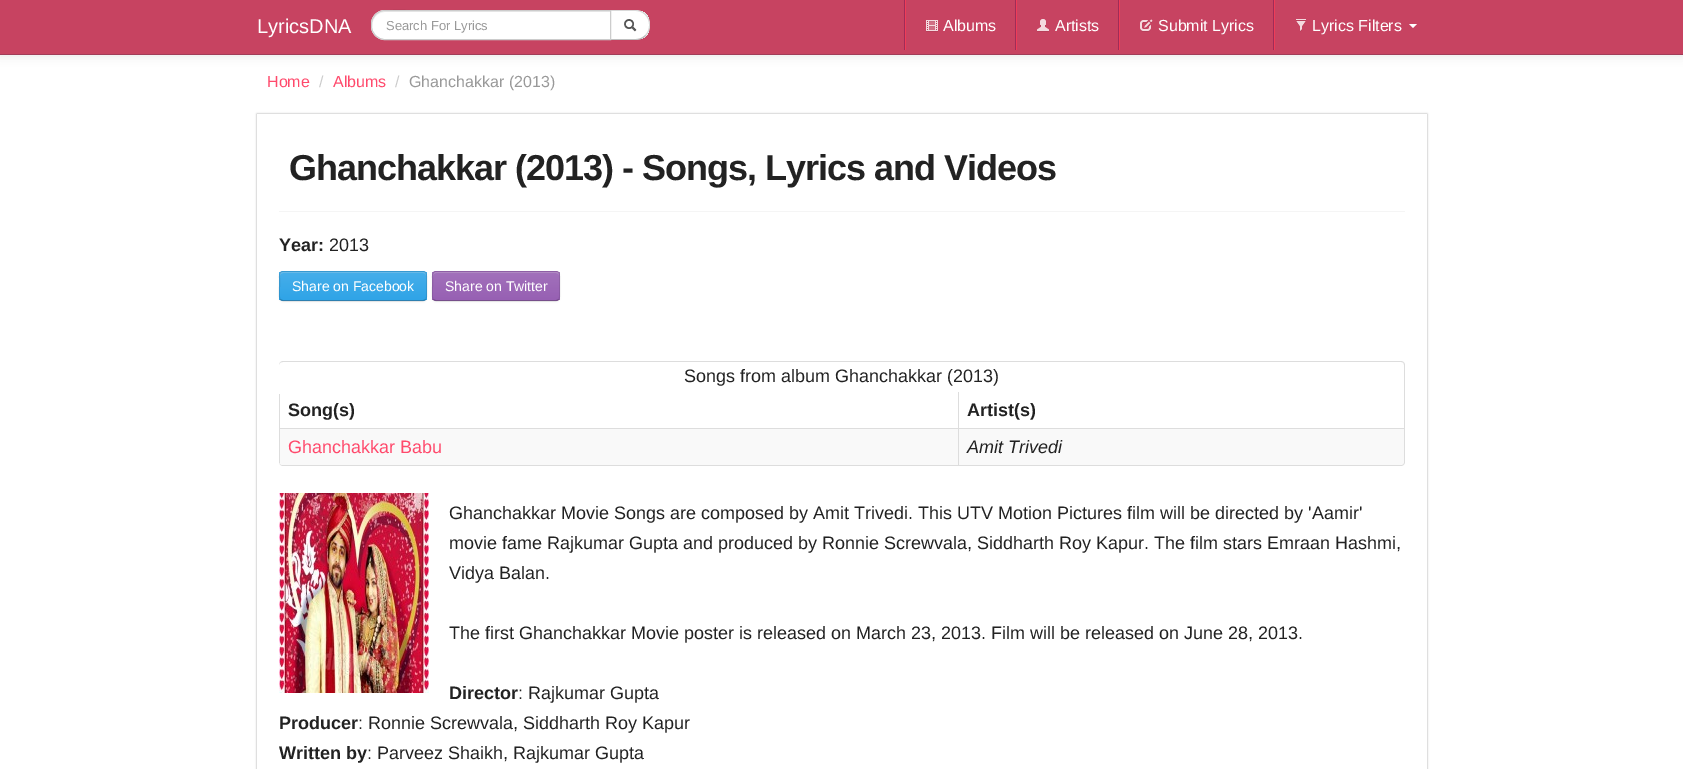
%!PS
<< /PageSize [1683 769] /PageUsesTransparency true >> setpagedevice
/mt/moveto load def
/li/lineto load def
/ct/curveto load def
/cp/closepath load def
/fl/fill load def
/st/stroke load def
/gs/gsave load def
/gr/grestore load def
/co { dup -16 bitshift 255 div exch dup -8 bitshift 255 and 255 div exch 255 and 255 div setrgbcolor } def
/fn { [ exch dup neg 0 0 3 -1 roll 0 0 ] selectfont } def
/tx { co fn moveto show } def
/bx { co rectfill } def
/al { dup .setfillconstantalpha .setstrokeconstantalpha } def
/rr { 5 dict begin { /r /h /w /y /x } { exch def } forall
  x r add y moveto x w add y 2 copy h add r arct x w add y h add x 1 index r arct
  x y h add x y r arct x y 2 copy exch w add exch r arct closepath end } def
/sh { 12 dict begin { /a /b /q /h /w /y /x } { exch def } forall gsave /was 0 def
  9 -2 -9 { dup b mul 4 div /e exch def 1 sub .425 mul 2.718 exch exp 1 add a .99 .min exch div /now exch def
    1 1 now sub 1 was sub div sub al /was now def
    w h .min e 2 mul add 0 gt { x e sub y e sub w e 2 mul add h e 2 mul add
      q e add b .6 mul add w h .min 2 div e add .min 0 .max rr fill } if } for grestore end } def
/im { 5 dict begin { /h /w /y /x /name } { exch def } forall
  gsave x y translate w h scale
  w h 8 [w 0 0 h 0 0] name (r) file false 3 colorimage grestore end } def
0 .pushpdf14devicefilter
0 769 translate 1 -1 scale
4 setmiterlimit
0 0 1683 769 16#FFFFFF bx
16#000000 co
0 1 1683 55 0 5 .1 sh
0 0 1683 54 16#C74361 bx
0 54 1683 1 16#A03C58 bx
16#FFFFFF co
610 10 mt 636 10 li 643.5 10 650 16.5 650 24 ct 650 26 li 650 33.5 643.5 40 636 40 ct 610 40 li cp fl
gs
610 10 mt 636 10 li 643.5 10 650 16.5 650 24 ct 650 26 li 650 33.5 643.5 40 636 40 ct 610 40 li cp clip newpath
611 11 38 28 16#FFFFFF bx
gr
0.15 al
16#000000 co
610 10 mt 611 11 li 636 11 li 639.5 11 643 12.5 645 15 ct 646 14 li 643.5 11.5 640 10 636 10 ct cp fl
650 26 mt 650 21.5 649.5 17.5 646 14 ct 645 15 li 650.5 20 650.5 30 645 35 ct 646 36 li 648.5 33.5 650 30 650 26 ct cp fl
0.25 al
636 40 mt 640 40 643.5 38.5 646 36 ct 645 35 li 643 37.5 639.5 39 636 39 ct 611 39 li 610 40 li cp fl
1 al
16#FFFFFF co
385 10 mt 611 10 li 611 40 li 385 40 li 377.5 40 371 33.5 371 26 ct 371 24 li 371 16.5 377.5 10 385 10 ct cp fl
0.07 al
16#000000 co
385 12 mt 610 12 li 610 11 li 422 11 li 414 11 365 2 372 29 ct 371 21 376 12 385 12 ct cp fl
1 al
16#CCCCCC co
385 10.5 mt 610.5 10.5 li 610.5 39.5 li 385 39.5 li 377.5 39.5 371.5 33.5 371.5 26 ct 371.5 24 li 371.5 16.5 377.5 10.5 385 10.5 ct cp st
(media/1.raw) 624 19 13 13 im
905 0 1 50 16#F03C58 bx
904 0 1 50 16#A02C58 bx
(media/2.raw) 926 20 12 12 im
1016 0 1 50 16#F03C58 bx
1015 0 1 50 16#A02C58 bx
(media/3.raw) 1037 19 12 13 im
1119 0 1 50 16#F03C58 bx
1118 0 1 50 16#A02C58 bx
(media/4.raw) 1140 19 13 13 im
1274 0 1 50 16#F03C58 bx
1273 0 1 50 16#A02C58 bx
(media/5.raw) 1296 19 10 13 im
16#FFFFFF co
1409 24 mt 1417 24 li 1413 28 li cp fl
gs
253 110 mt 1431 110 li 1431 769 li 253 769 li cp 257 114 mt 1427 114 li 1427 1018 li 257 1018 li cp eoclip newpath
16#999999 co
257 114 1170 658 0 1 1 sh
gr
279 211 1126 1 16#F5F5F5 bx
16#000000 co
279 272 148 30 4 1 .05 sh
16#3DAAE9 co
279 271 148 30 4 rr fl
gs
279 271 148 30 4 rr clip newpath
gs 279 272 mt 427 272 li 427 300 li 279 300 li cp clip newpath
<< /ShadingType 2 /ColorSpace /DeviceRGB /Coords [353 272 353 300] /Extend [true true] /Function << /FunctionType 2 /Domain [0 1] /C0 [.275 .682 .918] /C1 [.184 .643 .906] /N 1 >> >> shfill gr
gr
16#6BBEEE co
283 273 mt 423 273 li 425 273 426 274 426 276 ct 426 275 li 426 273 425 272 423 272 ct 283 272 li 281 272 280 273 280 275 ct 280 276 li 280 274 281 273 283 273 ct cp fl
0.25 al
16#000000 co
425.5 299.5 mt 425 300 424 300.5 423 300.5 ct 283 300.5 li 282 300.5 281 300 280.5 299.5 ct st
0.1 al
280.5 299.5 mt 278.5 297.5 279.5 289 279.5 286 ct 279.5 278.5 li 279.5 276 279 271.5 283 271.5 ct 423 271.5 li 427 271.5 426.5 276 426.5 278.5 ct 426.5 286 li 426.5 289 427.5 297.5 425.5 299.5 ct st
1 al
432 272 128 30 4 1 .05 sh
16#9E6AB8 co
432 271 128 30 4 rr fl
gs
432 271 128 30 4 rr clip newpath
gs 432 272 mt 560 272 li 560 300 li 432 300 li cp clip newpath
<< /ShadingType 2 /ColorSpace /DeviceRGB /Coords [496 272 496 300] /Extend [true true] /Function << /FunctionType 2 /Domain [0 1] /C0 [.635 .443 .733] /C1 [.592 .376 .702] /N 1 >> >> shfill gr
gr
16#B58DC9 co
436 273 mt 556 273 li 558 273 559 274 559 276 ct 559 274 559 272 557 272 ct 436 272 li 434 272 433 274 433 276 ct 433 274 434 273 436 273 ct cp fl
0.25 al
16#000000 co
558.5 299.5 mt 558 300 557 300.5 556 300.5 ct 436 300.5 li 435 300.5 434 300 433.5 299.5 ct st
0.1 al
433.5 299.5 mt 431.5 297.5 432.5 289 432.5 286 ct 432.5 278.5 li 432.5 276 432 271.5 436 271.5 ct 556 271.5 li 560 271.5 559.5 276 559.5 278.5 ct 559.5 286 li 559.5 289 560.5 297.5 558.5 299.5 ct st
1 al
16#DDDDDD co
283 361 mt 1401 361 li 1403 361 1405 363 1405 365 ct 1405 462 li 1405 464 1403 466 1401 466 ct 283 466 li 281 466 279 464 279 462 ct 279 365 li 279 363 281 361 283 361 ct cp 283 362 mt 1401 362 li 1403 362 1404 363 1404 365 ct 1404 462 li 1404 464 1403 465 1401 465 ct 283 465 li 281 465 279 464 279 462 ct 279 365 li 279 363 281 362 283 362 ct cp eofill
279 394 1 34 16#DDDDDD bx
958 392 1 36 16#DDDDDD bx
16#F9F9F9 co
279 428 mt 958 428 li 958 465 li 283 465 li 281 465 279 463 279 461 ct cp fl
279 428 679 1 16#DDDDDD bx
279 428 1 35 16#DDDDDD bx
16#F9F9F9 co
958 428 mt 1404 428 li 1404 461 li 1404 463 1402 465 1400 465 ct 958 465 li cp fl
958 428 446 1 16#DDDDDD bx
958 428 1 37 16#DDDDDD bx
(media/6.raw) 279 493 150 200 im
(LyricsDNA) 257 33 /LiberationSans-Regular 20 16#FFFFFF tx
(Search For Lyrics) 386 30 /LiberationSans-Regular 13 16#999999 tx
(Albums) 943 31 /LiberationSans-Regular 16 16#FFFFFF tx
(Artists) 1055 31 /LiberationSans-Regular 16 16#FFFFFF tx
(Submit Lyrics) 1158 31 /LiberationSans-Regular 16 16#FFFFFF tx
(Lyrics Filters) 1312 31 /LiberationSans-Regular 16 16#FFFFFF tx
(Home) 267 87 /LiberationSans-Regular 16 16#FF4A6C tx
(/) 319 87 /LiberationSans-Regular 16 16#CCCCCC tx
(Albums) 333 87 /LiberationSans-Regular 16 16#FF4A6C tx
(/) 395 87 /LiberationSans-Regular 16 16#CCCCCC tx
(Ghanchakkar \(2013\)) 409 87 /LiberationSans-Regular 16 16#999999 tx
/LiberationSans-Bold 36 fn
16#222222 co
289 180 mt -1 0 (Ghanchakkar \(2013\) - Songs, Lyrics and Videos) ashow
(Year:) 279 251 /LiberationSans-Bold 18 16#222222 tx
(2013) 329 251 /LiberationSans-Regular 18 16#222222 tx
(Share on Facebook) 292 291 /LiberationSans-Regular 14 16#FFFFFF tx
(Share on Twitter) 445 291 /LiberationSans-Regular 14 16#FFFFFF tx
(Songs from album Ghanchakkar \(2013\)) 684 382 /LiberationSans-Regular 18 16#222222 tx
(Song\(s\)) 288 416 /LiberationSans-Bold 18 16#222222 tx
(Artist\(s\)) 967 416 /LiberationSans-Bold 18 16#222222 tx
(Ghanchakkar Babu) 288 453 /LiberationSans-Regular 18 16#FF4A6C tx
(Amit Trivedi) 967 453 /LiberationSans-Italic 18 16#222222 tx
(Ghanchakkar Movie Songs are composed by Amit Trivedi. This UTV Motion Pictures film will be directed by 'Aamir') 449 519 /LiberationSans-Regular 18 16#222222 tx
(movie fame Rajkumar Gupta and produced by Ronnie Screwvala, Siddharth Roy Kapur. The film stars Emraan Hashmi,) 449 549 /LiberationSans-Regular 18 16#222222 tx
(Vidya Balan.) 449 579 /LiberationSans-Regular 18 16#222222 tx
(The first Ghanchakkar Movie poster is released on March 23, 2013. Film will be released on June 28, 2013.) 449 639 /LiberationSans-Regular 18 16#222222 tx
(Director) 449 699 /LiberationSans-Bold 18 16#222222 tx
(: Rajkumar Gupta) 518 699 /LiberationSans-Regular 18 16#222222 tx
(Producer) 279 729 /LiberationSans-Bold 18 16#222222 tx
(: Ronnie Screwvala, Siddharth Roy Kapur) 358 729 /LiberationSans-Regular 18 16#222222 tx
(Written by) 279 759 /LiberationSans-Bold 18 16#222222 tx
(: Parveez Shaikh, Rajkumar Gupta) 367 759 /LiberationSans-Regular 18 16#222222 tx
.poppdf14devicefilter showpage
